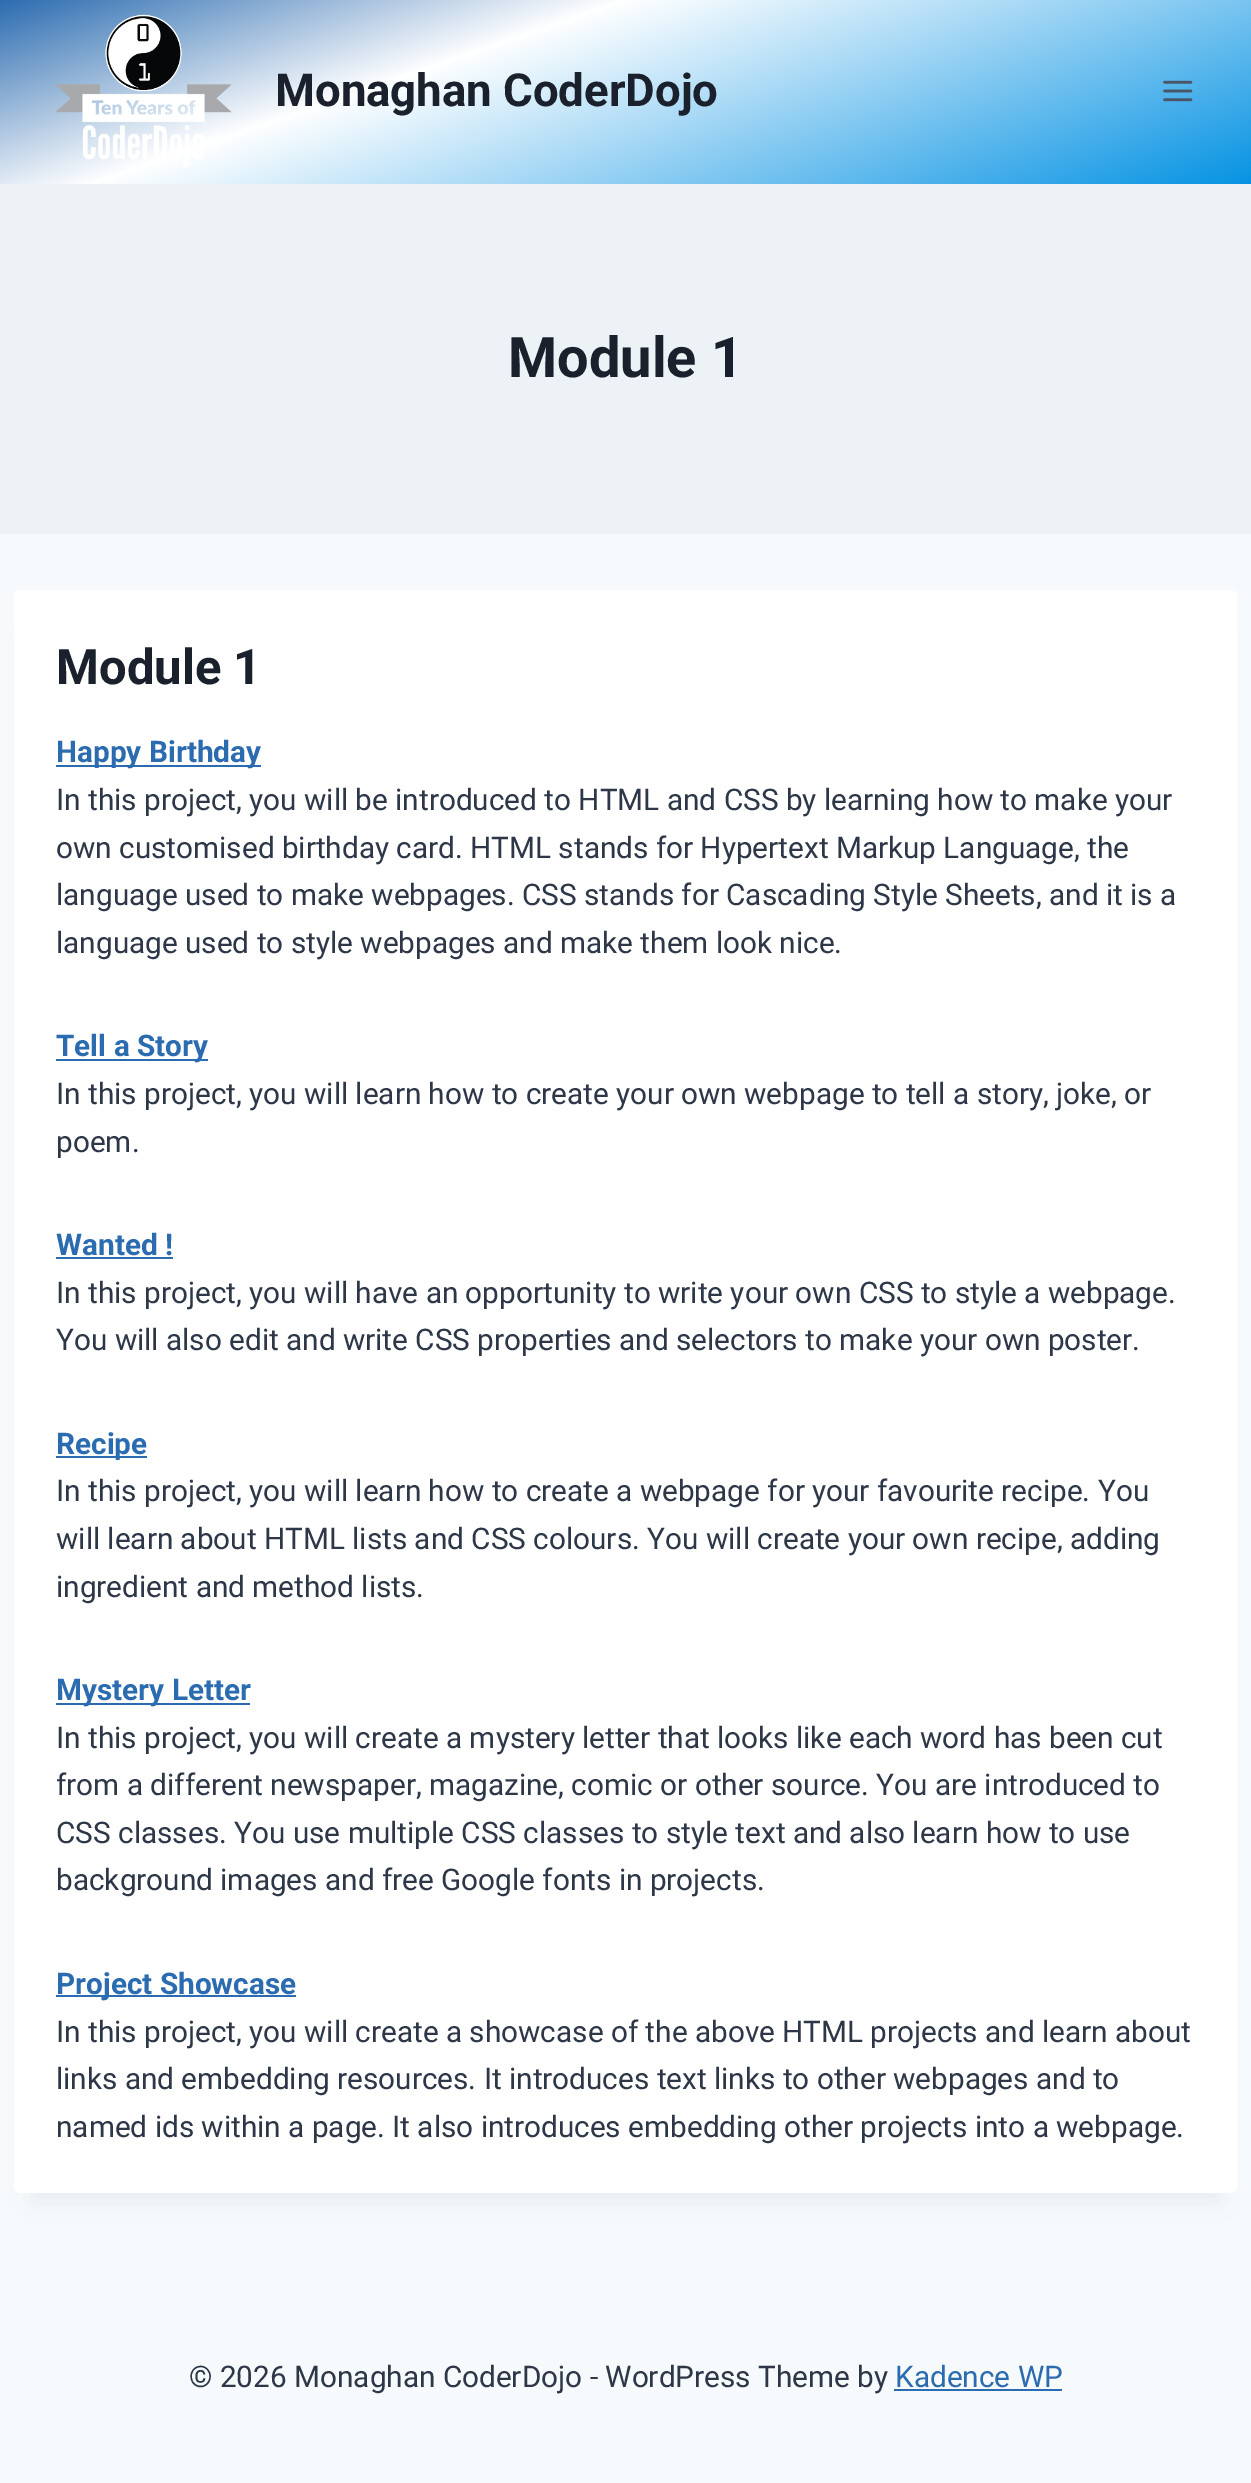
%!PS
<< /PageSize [1251 2483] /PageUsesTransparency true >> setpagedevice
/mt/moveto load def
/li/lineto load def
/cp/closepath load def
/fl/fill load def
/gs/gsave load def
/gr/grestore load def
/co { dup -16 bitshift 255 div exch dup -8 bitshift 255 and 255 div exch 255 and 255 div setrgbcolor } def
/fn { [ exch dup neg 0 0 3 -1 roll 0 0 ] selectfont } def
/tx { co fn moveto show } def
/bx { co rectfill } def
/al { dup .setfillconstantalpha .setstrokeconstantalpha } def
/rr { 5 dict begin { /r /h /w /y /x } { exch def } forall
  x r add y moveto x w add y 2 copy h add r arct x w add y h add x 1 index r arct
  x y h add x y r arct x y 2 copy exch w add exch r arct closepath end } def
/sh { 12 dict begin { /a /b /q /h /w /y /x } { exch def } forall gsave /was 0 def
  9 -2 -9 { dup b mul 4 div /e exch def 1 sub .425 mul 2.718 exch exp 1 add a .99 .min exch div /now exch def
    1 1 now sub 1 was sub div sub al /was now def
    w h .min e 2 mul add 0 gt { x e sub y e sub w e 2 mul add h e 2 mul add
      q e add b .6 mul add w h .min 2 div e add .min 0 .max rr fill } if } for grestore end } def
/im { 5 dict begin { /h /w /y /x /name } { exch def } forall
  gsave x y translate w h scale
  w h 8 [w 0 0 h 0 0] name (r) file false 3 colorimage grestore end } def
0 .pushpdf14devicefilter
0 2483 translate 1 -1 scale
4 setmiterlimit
0 0 1251 2483 16#F7FAFC bx
gs 0 0 mt 1251 0 li 1251 184 li 0 184 li cp clip newpath
<< /ShadingType 2 /ColorSpace /DeviceRGB /Coords [720 367 531 -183] /Extend [true true] /Function << /FunctionType 3 /Domain [0 1] /Functions [<< /FunctionType 2 /Domain [0 1] /C0 [.024 .576 .89] /C1 [1 1 1] /N 1 >> << /FunctionType 2 /Domain [0 1] /C0 [1 1 1] /C1 [.169 .424 .69] /N 1 >>] /Bounds [.65] /Encode [0 1 0 1] >> >> shfill gr
(media/1.raw) 55 14 177 153 im
(media/2.raw) 1163 80 30 22 im
0 184 1251 350 16#EDF2F7 bx
16#000000 co
32 634 1188 1568 0 13 .05 sh
16#FFFFFF co
14 590 1223 1603 7 rr fl
56 765 205 2 16#2B6CB0 bx
56 1059 152 2 16#2B6CB0 bx
56 1257 117 2 16#2B6CB0 bx
56 1456 91 2 16#2B6CB0 bx
56 1703 194 2 16#2B6CB0 bx
56 1995 240 2 16#2B6CB0 bx
894 2389 168 2 16#2B6CB0 bx
(Monaghan CoderDojo) 275 106 /Roboto-Bold 45.5 16#1A202C tx
(Module 1) 508 377 /Roboto-Bold 56 16#1A202C tx
(Module 1) 56 684 /Roboto-Bold 49 16#1A202C tx
(Happy Birthday) 56 762 /Roboto-Bold 29.75 16#2B6CB0 tx
(In this project, you will be introduced to HTML and CSS by learning how to make your) 56 810 /Roboto-Regular 29.75 16#2D3748 tx
(own customised birthday card. HTML stands for Hypertext Markup Language, the) 56 858 /Roboto-Regular 29.75 16#2D3748 tx
(language used to make webpages. CSS stands for Cascading Style Sheets, and it is a) 56 905 /Roboto-Regular 29.75 16#2D3748 tx
(language used to style webpages and make them look nice.) 56 953 /Roboto-Regular 29.75 16#2D3748 tx
(Tell a Story) 56 1056 /Roboto-Bold 29.75 16#2B6CB0 tx
(In this project, you will learn how to create your own webpage to tell a story, joke, or) 56 1104 /Roboto-Regular 29.75 16#2D3748 tx
(poem.) 56 1152 /Roboto-Regular 29.75 16#2D3748 tx
(Wanted !) 56 1255 /Roboto-Bold 29.75 16#2B6CB0 tx
(In this project, you will have an opportunity to write your own CSS to style a webpage.) 56 1303 /Roboto-Regular 29.75 16#2D3748 tx
(You will also edit and write CSS properties and selectors to make your own poster.) 56 1350 /Roboto-Regular 29.75 16#2D3748 tx
(Recipe) 56 1454 /Roboto-Bold 29.75 16#2B6CB0 tx
(In this project, you will learn how to create a webpage for your favourite recipe. You) 56 1501 /Roboto-Regular 29.75 16#2D3748 tx
(will learn about HTML lists and CSS colours. You will create your own recipe, adding) 56 1549 /Roboto-Regular 29.75 16#2D3748 tx
(ingredient and method lists.) 56 1597 /Roboto-Regular 29.75 16#2D3748 tx
(Mystery Letter) 56 1700 /Roboto-Bold 29.75 16#2B6CB0 tx
(In this project, you will create a mystery letter that looks like each word has been cut) 56 1748 /Roboto-Regular 29.75 16#2D3748 tx
(from a different newspaper, magazine, comic or other source. You are introduced to) 56 1795 /Roboto-Regular 29.75 16#2D3748 tx
(CSS classes. You use multiple CSS classes to style text and also learn how to use) 56 1843 /Roboto-Regular 29.75 16#2D3748 tx
(background images and free Google fonts in projects.) 56 1890 /Roboto-Regular 29.75 16#2D3748 tx
(Project Showcase) 56 1994 /Roboto-Bold 29.75 16#2B6CB0 tx
(In this project, you will create a showcase of the above HTML projects and learn about) 56 2042 /Roboto-Regular 29.75 16#2D3748 tx
(links and embedding resources. It introduces text links to other webpages and to) 56 2089 /Roboto-Regular 29.75 16#2D3748 tx
(named ids within a page. It also introduces embedding other projects into a webpage.) 56 2137 /Roboto-Regular 29.75 16#2D3748 tx
(© 2026 Monaghan CoderDojo - WordPress Theme by) 189 2387 /Roboto-Regular 29.75 16#2D3748 tx
(Kadence WP) 895 2387 /Roboto-Regular 29.75 16#2B6CB0 tx
.poppdf14devicefilter showpage
